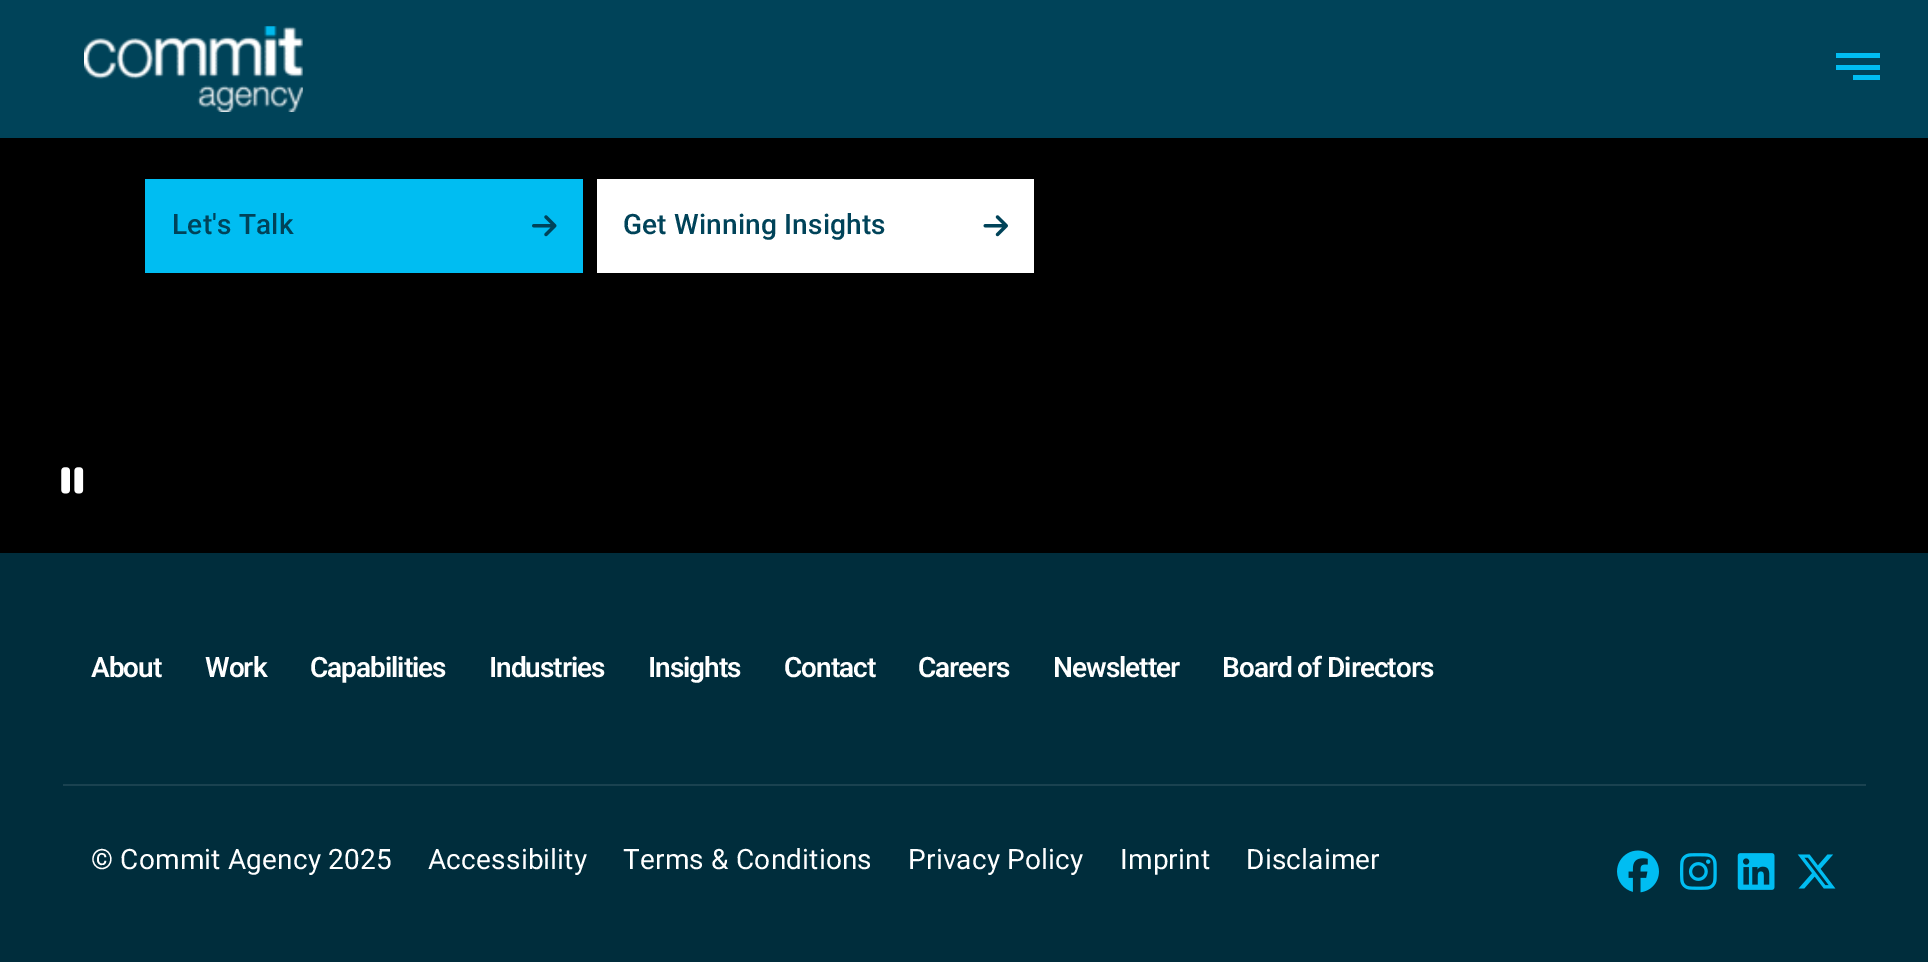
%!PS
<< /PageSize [1928 962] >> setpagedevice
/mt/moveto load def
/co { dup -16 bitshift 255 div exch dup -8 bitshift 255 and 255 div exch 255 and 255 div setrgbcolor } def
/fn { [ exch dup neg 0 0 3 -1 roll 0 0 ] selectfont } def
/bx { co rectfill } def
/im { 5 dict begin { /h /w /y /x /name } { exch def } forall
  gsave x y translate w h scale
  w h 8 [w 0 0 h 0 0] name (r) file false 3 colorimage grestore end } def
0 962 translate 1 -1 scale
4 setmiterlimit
0 0 1928 962 16#002D3C bx
0 0 1928 138 16#004359 bx
(media/1.raw) 84 26 219 86 im
1836 53 44 5 16#00BDF2 bx
1836 65 44 5 16#00BDF2 bx
1853 75 27 5 16#00BDF2 bx
0 138 1928 415 16#000000 bx
(media/2.raw) 61 467 23 27 im
145 179 438 94 16#00BDF2 bx
(media/3.raw) 532 215 25 22 im
597 179 437 94 16#FFFFFF bx
(media/4.raw) 983 215 25 22 im
63 784 1803 2 16#1A4250 bx
(media/5.raw) 1617 850 42 43 im
(media/6.raw) 1680 853 37 37 im
(media/7.raw) 1737 853 38 37 im
(media/8.raw) 1797 854 39 35 im
/Roboto-Medium 28 fn
16#004359 co
172 234 mt .2 0 (Let's Talk) ashow
623 234 mt .2 0 (Get Winning Insights) ashow
/Roboto-SemiBold 28 fn
16#FFFFFF co
91 677 mt -1 0 (About) ashow
205 677 mt -1 0 (Work) ashow
310 677 mt -1 0 (Capabilities) ashow
489 677 mt -1 0 (Industries) ashow
648 677 mt -1 0 (Insights) ashow
784 677 mt -1 0 (Contact) ashow
918 677 mt -1 0 (Careers) ashow
1053 677 mt -1 0 (Newsletter) ashow
1222 677 mt -1 0 (Board of Directors) ashow
/Roboto-Regular 28 fn
91 869 mt .2 0 (© Commit Agency 2025) ashow
428 869 mt .2 0 (Accessibility) ashow
623 869 mt .2 0 (Terms & Conditions) ashow
908 869 mt .2 0 (Privacy Policy) ashow
1120 869 mt .2 0 (Imprint) ashow
1246 869 mt .2 0 (Disclaimer) ashow
showpage
